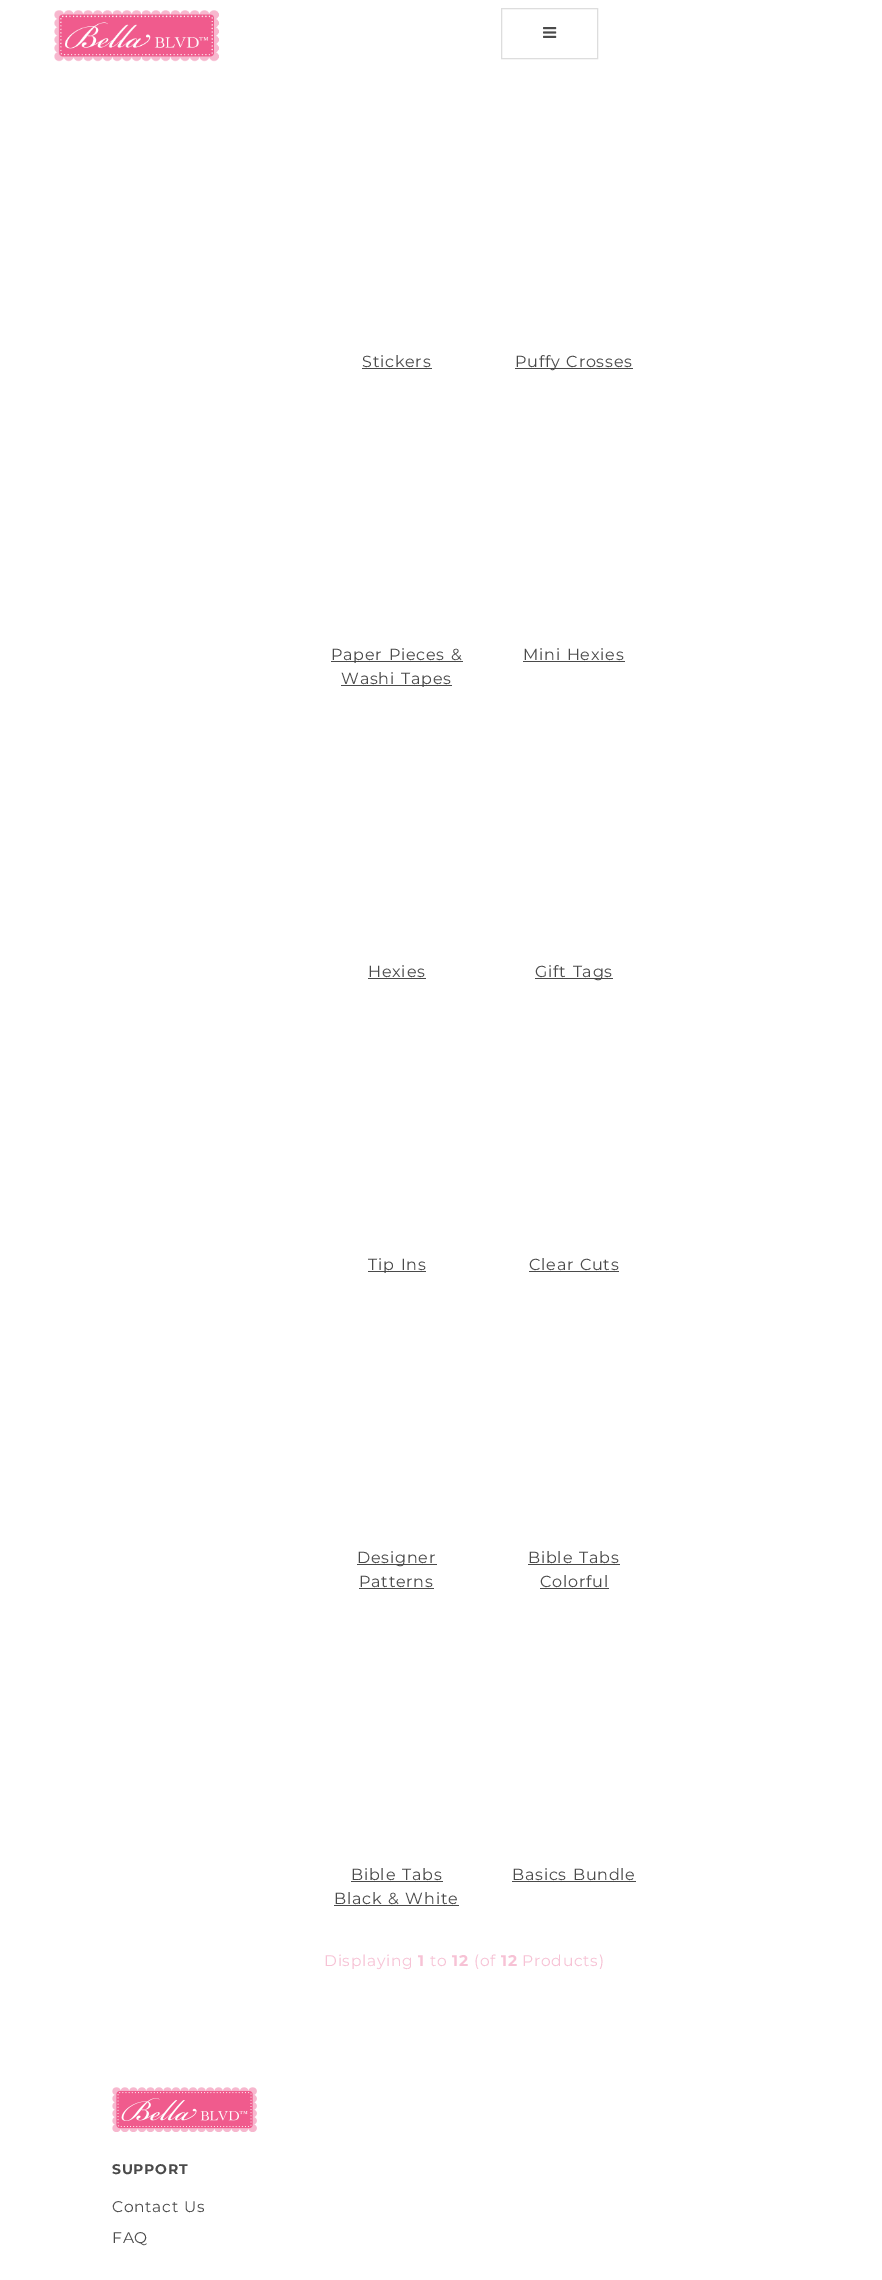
%!PS
<< /PageSize [882 2280] >> setpagedevice
/mt/moveto load def
/co { dup -16 bitshift 255 div exch dup -8 bitshift 255 and 255 div exch 255 and 255 div setrgbcolor } def
/fn { [ exch dup neg 0 0 3 -1 roll 0 0 ] selectfont } def
/bx { co rectfill } def
/im { 5 dict begin { /h /w /y /x /name } { exch def } forall
  gsave x y translate w h scale
  w h 8 [w 0 0 h 0 0] name (r) file false 3 colorimage grestore end } def
0 2280 translate 1 -1 scale
4 setmiterlimit
0 0 882 2280 16#FFFFFF bx
(media/1.raw) 54 10 165 52 im
16#DDDDDD co
501.5 8.5 96 50 rectstroke
(media/2.raw) 543 27 14 11 im
362 368 70 1 16#4A4A4A bx
515 368 118 1 16#4A4A4A bx
331 661 132 1 16#4A4A4A bx
341 685 111 1 16#4A4A4A bx
523 661 102 1 16#4A4A4A bx
368 978 58 1 16#4A4A4A bx
535 978 78 1 16#4A4A4A bx
368 1271 58 1 16#4A4A4A bx
529 1271 90 1 16#4A4A4A bx
357 1564 80 1 16#4A4A4A bx
359 1588 75 1 16#4A4A4A bx
528 1564 92 1 16#4A4A4A bx
540 1588 69 1 16#4A4A4A bx
351 1881 92 1 16#4A4A4A bx
334 1905 125 1 16#4A4A4A bx
512 1881 124 1 16#4A4A4A bx
(media/3.raw) 112 2087 145 45 im
/Montserrat-Regular 16 fn
362 367 mt .75 0 (Stickers) ashow
515 367 mt 1 0 32 .75 0 (Puffy Crosses) awidthshow
331 660 mt 1 0 32 .75 0 (Paper Pieces &) awidthshow
341 684 mt 1 0 32 .75 0 (Washi Tapes) awidthshow
523 660 mt 1 0 32 .75 0 (Mini Hexies) awidthshow
368 977 mt .75 0 (Hexies) ashow
535 977 mt 1 0 32 .75 0 (Gift Tags) awidthshow
368 1270 mt 1 0 32 .75 0 (Tip Ins) awidthshow
529 1270 mt 1 0 32 .75 0 (Clear Cuts) awidthshow
357 1563 mt .75 0 (Designer) ashow
359 1587 mt .75 0 (Patterns) ashow
528 1563 mt 1 0 32 .75 0 (Bible Tabs) awidthshow
540 1587 mt .75 0 (Colorful) ashow
351 1880 mt 1 0 32 .75 0 (Bible Tabs) awidthshow
334 1904 mt 1 0 32 .75 0 (Black & White) awidthshow
512 1880 mt 1 0 32 .75 0 (Basics Bundle) awidthshow
/Montserrat-Regular 15.5 fn
16#F7C2D5 co
324 1966 mt .75 0 (Displaying) ashow
/Montserrat-Bold 15.5 fn
418 1966 mt .75 0 (1) ashow
/Montserrat-Regular 15.5 fn
430 1966 mt .75 0 (to) ashow
/Montserrat-Bold 15.5 fn
452 1966 mt .75 0 (12) ashow
/Montserrat-Regular 15.5 fn
474 1966 mt .75 0 (\(of) ashow
/Montserrat-Bold 15.5 fn
501 1966 mt .75 0 (12) ashow
/Montserrat-Regular 15.5 fn
522 1966 mt .75 0 (Products\)) ashow
/Montserrat-Bold 14 fn
16#4A4A4A co
112 2174 mt .75 0 (SUPPORT) ashow
/Montserrat-Regular 15.5 fn
112 2212 mt .75 0 (Contact Us) ashow
112 2243 mt .75 0 (FAQ) ashow
showpage
